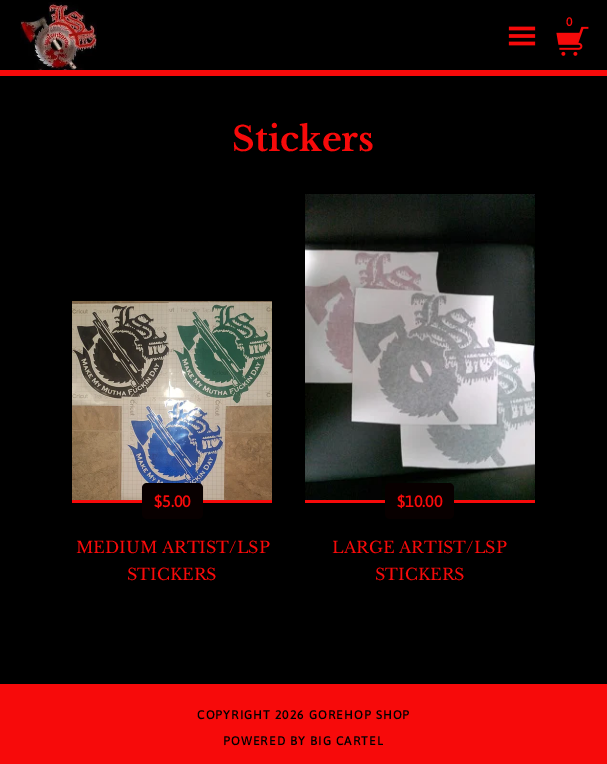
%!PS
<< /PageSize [607 764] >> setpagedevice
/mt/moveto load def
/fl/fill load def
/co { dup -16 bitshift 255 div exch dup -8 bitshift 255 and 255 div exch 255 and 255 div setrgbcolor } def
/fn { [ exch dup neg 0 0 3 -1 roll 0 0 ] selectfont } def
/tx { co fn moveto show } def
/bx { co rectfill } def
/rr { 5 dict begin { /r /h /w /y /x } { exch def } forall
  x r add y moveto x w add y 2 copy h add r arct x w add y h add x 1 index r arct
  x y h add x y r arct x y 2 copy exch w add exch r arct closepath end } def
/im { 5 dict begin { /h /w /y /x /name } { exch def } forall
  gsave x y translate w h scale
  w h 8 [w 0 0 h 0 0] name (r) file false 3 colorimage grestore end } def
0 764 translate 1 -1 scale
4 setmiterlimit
0 0 607 764 16#000000 bx
0 70 607 6 16#F70A0A bx
(media/1.raw) 20 2 77 68 im
(media/3.raw) 508 26 28 20 im
(media/4.raw) 72 301 200 199 im
72 500 200 3 16#F70A0A bx
16#080000 co
142 483 61 36 5 rr fl
(media/5.raw) 305 194 230 306 im
305 500 230 3 16#F70A0A bx
16#080000 co
385 483 69 36 5 rr fl
0 684 607 80 16#F70A0A bx
/Asap-Bold 12 fn
566 26 mt 1.1 0 (0) ashow
(media/2.raw) 556 26 33 30 im
(Stickers) 232 151 /LibreBaskerville-Bold 34 16#F70A0A tx
($5.00) 154 507 /Asap-Bold 16 16#F70A0A tx
(MEDIUM ARTIST/LSP) 76 553 /LibreBaskerville-Regular 16 16#F70A0A tx
(STICKERS) 127 580 /LibreBaskerville-Regular 16 16#F70A0A tx
($10.00) 397 507 /Asap-Bold 16 16#F70A0A tx
(LARGE ARTIST/LSP) 332 553 /LibreBaskerville-Regular 16 16#F70A0A tx
(STICKERS) 375 580 /LibreBaskerville-Regular 16 16#F70A0A tx
/Asap-Bold 12 fn
16#000000 co
197 719 mt 1.1 0 (COPYRIGHT 2026 GOREHOP SHOP) ashow
223 745 mt 1.1 0 (POWERED BY BIG CARTEL) ashow
showpage
